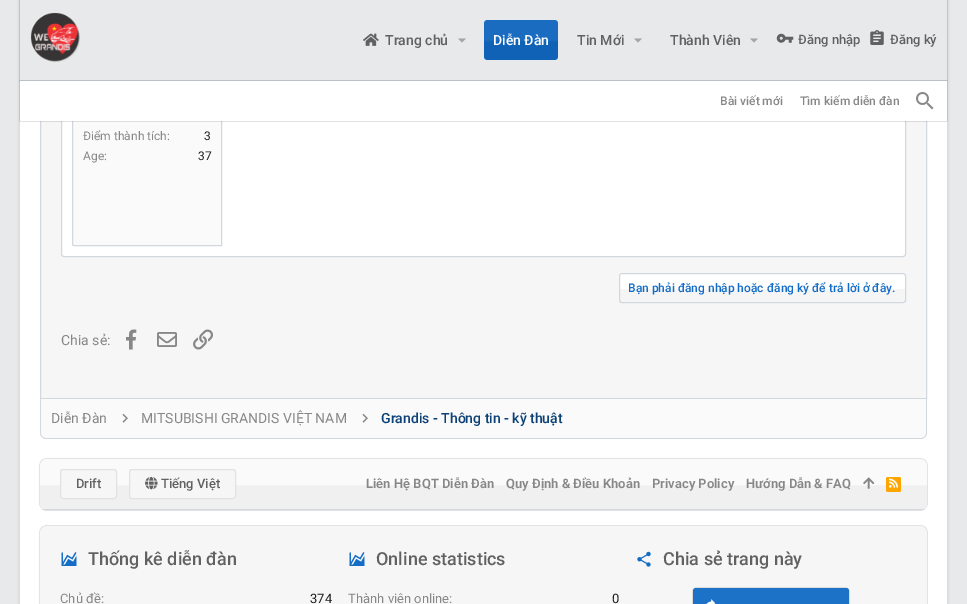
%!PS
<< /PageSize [967 604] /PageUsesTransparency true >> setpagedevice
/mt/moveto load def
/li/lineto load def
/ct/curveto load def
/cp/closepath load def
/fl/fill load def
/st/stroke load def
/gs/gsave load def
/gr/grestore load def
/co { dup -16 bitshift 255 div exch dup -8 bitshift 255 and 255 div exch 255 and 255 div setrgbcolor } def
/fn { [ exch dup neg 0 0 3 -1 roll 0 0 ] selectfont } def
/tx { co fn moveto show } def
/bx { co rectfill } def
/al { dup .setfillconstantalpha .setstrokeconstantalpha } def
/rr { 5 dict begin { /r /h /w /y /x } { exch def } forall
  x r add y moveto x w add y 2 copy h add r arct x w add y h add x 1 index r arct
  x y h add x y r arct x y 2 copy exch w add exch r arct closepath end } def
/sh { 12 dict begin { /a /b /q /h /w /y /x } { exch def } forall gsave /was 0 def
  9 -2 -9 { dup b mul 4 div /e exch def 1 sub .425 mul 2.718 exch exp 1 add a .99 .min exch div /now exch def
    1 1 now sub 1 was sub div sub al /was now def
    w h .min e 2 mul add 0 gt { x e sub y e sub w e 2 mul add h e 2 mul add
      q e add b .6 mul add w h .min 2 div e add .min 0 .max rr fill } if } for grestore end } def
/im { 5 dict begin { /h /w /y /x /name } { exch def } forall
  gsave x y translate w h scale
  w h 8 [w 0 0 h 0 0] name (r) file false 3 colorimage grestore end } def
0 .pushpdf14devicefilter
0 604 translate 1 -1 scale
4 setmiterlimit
0 0 967 604 16#E8E9EA bx
16#000000 co
18 -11 931 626 8 1 .05 sh
20 121 927 483 16#FFFFFF bx
41 121 885 277 16#F6F6F6 bx
16#D3D8DF co
40.5 -.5 886 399 rectstroke
16#FFFFFF co
61.5 -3.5 844 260 2.5 rr gs fl gr
16#D3D8DF co
st
16#FAFAFA co
74 -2.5 mt 221.5 -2.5 li 221.5 245.5 li 74 245.5 li 73 245.5 72.5 245 72.5 244 ct 72.5 -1 li 72.5 -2 73 -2.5 74 -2.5 ct cp gs fl gr
16#D3D8DF co
st
16#000000 co
20 0 927 81 0 .5 .4 sh
20 0 927 80 16#E8E9EA bx
20 80 927 1 16#D3D8DF bx
(media/1.raw) 30 12 51 50 im
(media/2.raw) 363 33 16 13 im
16#A5A5A6 co
458 38.5 mt 462 42.5 li 466 38.5 li cp fl
16#1066BD co
484 20 74 40 3 rr fl
(media/3.raw) 484 20 74 40 im
16#A5A5A6 co
634 38.5 mt 638 42.5 li 642 38.5 li cp fl
750 38.5 mt 754 42.5 li 758 38.5 li cp fl
(media/4.raw) 776 33 18 10 im
(media/5.raw) 870 30 14 15 im
16#000000 co
20 81 927 40 0 .5 .4 sh
20 81 927 40 16#FFFFFF bx
(media/6.raw) 916 92 18 18 im
619 273 287 30 3 rr fl
0.04 al
619 289 287 14 16#000000 bx
1 al
16#D3D8DF co
619.5 273.5 286 29 2.5 rr st
(media/7.raw) 126 329 11 21 im
(media/8.raw) 157 332 20 15 im
(media/9.raw) 193 329 20 21 im
16#FAFAFA co
41 399 mt 926 399 li 926 433 li 926 436 924 438 921 438 ct 46 438 li 43 438 41 436 41 433 ct cp fl
16#D3D8DF co
40 399 mt 927 399 li 927 433 li 927 436 924 439 921 439 ct 46 439 li 43 439 40 436 40 433 ct cp 41 399 mt 926 399 li 926 433 li 926 436 924 438 921 438 ct 46 438 li 43 438 41 436 41 433 ct cp eofill
(media/10.raw) 122 413 6 10 im
(media/10.raw) 362 413 6 10 im
16#000000 co
40 459 887 51 6 .5 .4 sh
16#FAFAFA co
46 459 mt 921 459 li 924 459 927 462 927 465 ct 927 504 li 927 507 924 509 921 509 ct 46 509 li 43 509 40 507 40 504 ct 40 465 li 40 462 43 459 46 459 ct cp fl
(media/11.raw) 40 485 887 24 im
43 509 881 1 16#D3D8DF bx
16#F6F6F6 co
60.5 469.5 56 29 2.5 rr gs fl gr
16#E2E2E2 co
st
16#F6F6F6 co
129.5 469.5 106 29 2.5 rr gs fl gr
16#E2E2E2 co
st
(media/12.raw) 145 476 13 14 im
(media/13.raw) 863 477 12 12 im
16#FFA500 co
886 477 15 15 2 rr fl
(media/14.raw) 889 478 10 10 im
16#000000 co
40 526 887 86 6 .5 .4 sh
16#F6F6F6 co
46 526 mt 921 526 li 924 526 927 529 927 532 ct 927 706 li 927 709 924 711 921 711 ct 46 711 li 43 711 40 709 40 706 ct 40 532 li 40 529 43 526 46 526 ct cp fl
(media/15.raw) 61 552 16 14 im
(media/15.raw) 349 552 16 14 im
(media/16.raw) 637 551 14 16 im
16#000000 co
693 588 156 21 3 .5 .4 sh
16#136CC5 co
693 588 156 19 3 rr fl
0.04 al
693 588 156 16 16#FFFFFF bx
1 al
(media/17.raw) 706 599 10 5 im
(Trang chủ) 385 45 /Roboto-Medium 14 16#616161 tx
(Diễn Đàn) 493 45 /Roboto-Medium 14 16#FFFFFF tx
(Tin Mới) 577 45 /Roboto-Medium 14 16#616161 tx
(Thành Viên) 670 45 /Roboto-Medium 14 16#616161 tx
(Đăng nhập) 798 44 /Roboto-Medium 13 16#616161 tx
(Đăng ký) 890 44 /Roboto-Medium 13 16#616161 tx
(Bài viết mới) 720 105 /Roboto-Medium 12 16#878787 tx
(Tìm kiếm diễn đàn) 800 105 /Roboto-Medium 12 16#878787 tx
(Điểm thành tích:) 83 140 /Roboto-Regular 12 16#878787 tx
(3) 204 140 /Roboto-Regular 12 16#1C1C1C tx
(Age:) 83 160 /Roboto-Regular 12 16#878787 tx
(37) 198 160 /Roboto-Regular 12 16#1C1C1C tx
(Bạn phải đăng nhập hoặc đăng ký để trả lời ở đây.) 628 292 /Roboto-Medium 12 16#136CC5 tx
(Chia sẻ:) 61 345 /Roboto-Regular 14 16#878787 tx
(Diễn Đàn) 51 423 /Roboto-Regular 14 16#878787 tx
(MITSUBISHI GRANDIS VIỆT NAM) 141 423 /Roboto-Regular 14 16#878787 tx
(Grandis - Thông tin - kỹ thuật) 381 423 /Roboto-Medium 14 16#0B4176 tx
(Drift) 76 488 /Roboto-Medium 13 16#616161 tx
(Tiếng Việt) 161 488 /Roboto-Medium 13 16#616161 tx
(Liên Hệ BQT Diễn Đàn) 366 488 /Roboto-SemiBold 13 16#878787 tx
(Quy Định & Điều Khoản) 506 488 /Roboto-SemiBold 13 16#878787 tx
(Privacy Policy) 652 488 /Roboto-SemiBold 13 16#878787 tx
(Hướng Dẫn & FAQ) 746 488 /Roboto-SemiBold 13 16#878787 tx
(Thống kê diễn đàn) 88 565 /Roboto-Medium 18 16#616161 tx
(Chủ đề:) 60 603 /Roboto-Regular 13 16#878787 tx
(374) 310 603 /Roboto-Regular 13 16#1C1C1C tx
(Online statistics) 376 565 /Roboto-Medium 18 16#616161 tx
(Thành viên online:) 348 603 /Roboto-Regular 13 16#878787 tx
(0) 612 603 /Roboto-Regular 13 16#1C1C1C tx
(Chia sẻ trang này) 663 565 /Roboto-Medium 18 16#616161 tx
.poppdf14devicefilter showpage
